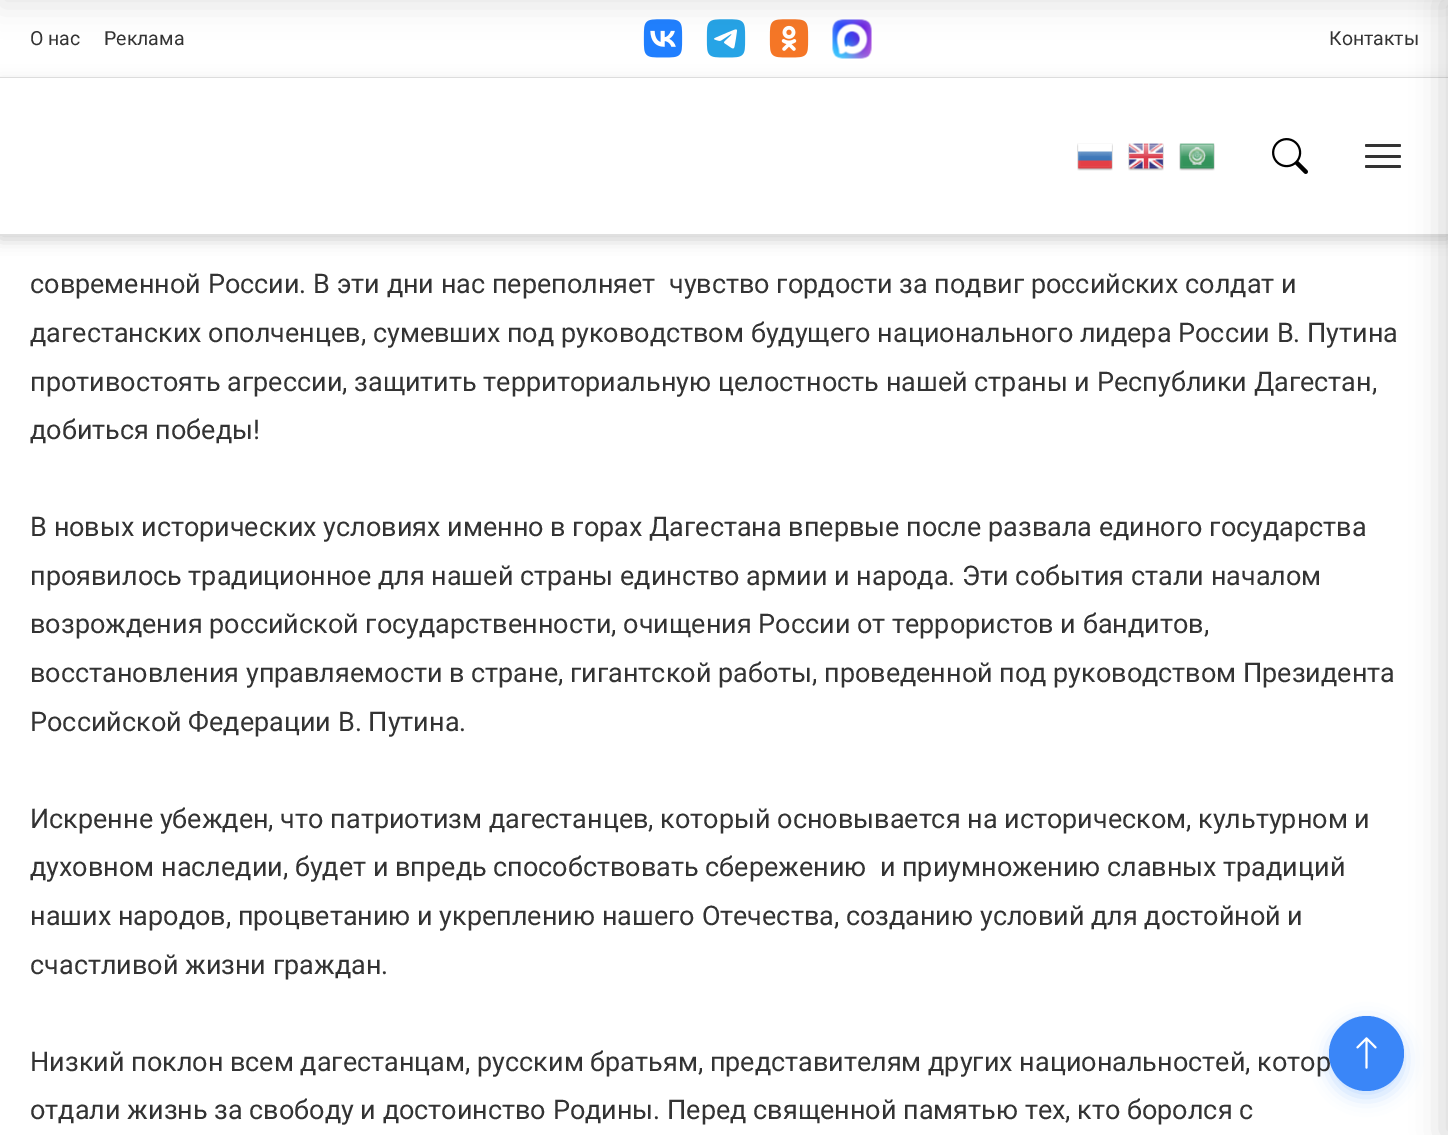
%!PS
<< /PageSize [1448 1135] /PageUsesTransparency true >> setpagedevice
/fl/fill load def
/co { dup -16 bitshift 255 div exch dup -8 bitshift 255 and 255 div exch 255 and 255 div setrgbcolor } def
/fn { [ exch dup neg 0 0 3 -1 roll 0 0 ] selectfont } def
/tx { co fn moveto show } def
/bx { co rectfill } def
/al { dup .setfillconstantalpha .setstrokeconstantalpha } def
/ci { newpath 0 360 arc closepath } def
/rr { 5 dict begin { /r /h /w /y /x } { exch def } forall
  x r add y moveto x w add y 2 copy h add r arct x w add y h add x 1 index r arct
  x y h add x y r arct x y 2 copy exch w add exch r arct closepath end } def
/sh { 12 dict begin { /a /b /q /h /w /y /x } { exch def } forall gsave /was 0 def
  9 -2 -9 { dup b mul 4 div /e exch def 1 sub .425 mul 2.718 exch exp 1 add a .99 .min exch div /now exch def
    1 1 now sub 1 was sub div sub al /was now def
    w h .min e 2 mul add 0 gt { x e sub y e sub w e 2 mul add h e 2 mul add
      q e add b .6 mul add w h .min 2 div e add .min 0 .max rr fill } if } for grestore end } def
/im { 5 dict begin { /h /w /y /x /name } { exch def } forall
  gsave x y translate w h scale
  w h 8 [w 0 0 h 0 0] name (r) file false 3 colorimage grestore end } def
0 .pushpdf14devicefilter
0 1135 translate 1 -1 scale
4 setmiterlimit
0 0 1448 1135 16#FFFFFF bx
16#000000 co
0 3 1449 236 0 7.5 .1 sh
0 0 1448 77 16#FFFFFF bx
(media/1.raw) 643 19 40 39 im
(media/2.raw) 706 19 40 39 im
(media/3.raw) 769 19 40 39 im
(media/4.raw) 832 19 40 40 im
16#000000 co
0 -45 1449 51 0 15 .1 sh
0 77 1448 1 16#E5E5E5 bx
16#000000 co
0 81 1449 158 0 7.5 .1 sh
0 78 1448 156 16#FFFFFF bx
0 234 1448 2 16#E0E0E0 bx
16#333333 co
1365 144 36 3 1.5 rr fl
1365 155 36 3 1.5 rr fl
1365 165 36 3 1.5 rr fl
16#000000 co
1442 0 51 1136 0 15 .15 sh
(media/5.raw) 1077 143 36 28 im
(media/6.raw) 1128 143 36 28 im
(media/7.raw) 1179 143 36 28 im
(media/8.raw) 1272 138 36 36 im
16#3A86F8 co
1329 1022 75 75 37.5 9 .3 sh
(О нас) 30 45 /Roboto-Regular 19.5 16#333333 tx
(Реклама) 104 45 /Roboto-Regular 19.5 16#333333 tx
(Контакты) 1329 45 /Roboto-Regular 19.5 16#333333 tx
(современной России. В эти дни нас переполняет  чувство гордости за подвиг российских солдат и) 30 293 /Roboto-Regular 27 16#333333 tx
(дагестанских ополченцев, сумевших под руководством будущего национального лидера России В. Путина) 30 342 /Roboto-Regular 27 16#333333 tx
(противостоять агрессии, защитить территориальную целостность нашей страны и Республики Дагестан,) 30 391 /Roboto-Regular 27 16#333333 tx
(добиться победы!) 30 439 /Roboto-Regular 27 16#333333 tx
(В новых исторических условиях именно в горах Дагестана впервые после развала единого государства) 30 536 /Roboto-Regular 27 16#333333 tx
(проявилось традиционное для нашей страны единство армии и народа. Эти события стали началом) 30 585 /Roboto-Regular 27 16#333333 tx
(возрождения российской государственности, очищения России от террористов и бандитов,) 30 633 /Roboto-Regular 27 16#333333 tx
(восстановления управляемости в стране, гигантской работы, проведенной под руководством Президента) 30 682 /Roboto-Regular 27 16#333333 tx
(Российской Федерации В. Путина.) 30 731 /Roboto-Regular 27 16#333333 tx
(Искренне убежден, что патриотизм дагестанцев, который основывается на историческом, культурном и) 30 828 /Roboto-Regular 27 16#333333 tx
(духовном наследии, будет и впредь способствовать сбережению  и приумножению славных традиций) 30 876 /Roboto-Regular 27 16#333333 tx
(наших народов, процветанию и укреплению нашего Отечества, созданию условий для достойной и) 30 925 /Roboto-Regular 27 16#333333 tx
(счастливой жизни граждан.) 30 974 /Roboto-Regular 27 16#333333 tx
(Низкий поклон всем дагестанцам, русским братьям, представителям других национальностей, котор) 30 1071 /Roboto-Regular 27 16#333333 tx
(отдали жизнь за свободу и достоинство Родины. Перед священной памятью тех, кто боролся с) 30 1119 /Roboto-Regular 27 16#333333 tx
16#3A86F8 co
1366.5 1053.5 37.5 ci fl
(media/9.raw) 1356 1037 21 32 im
.poppdf14devicefilter showpage
